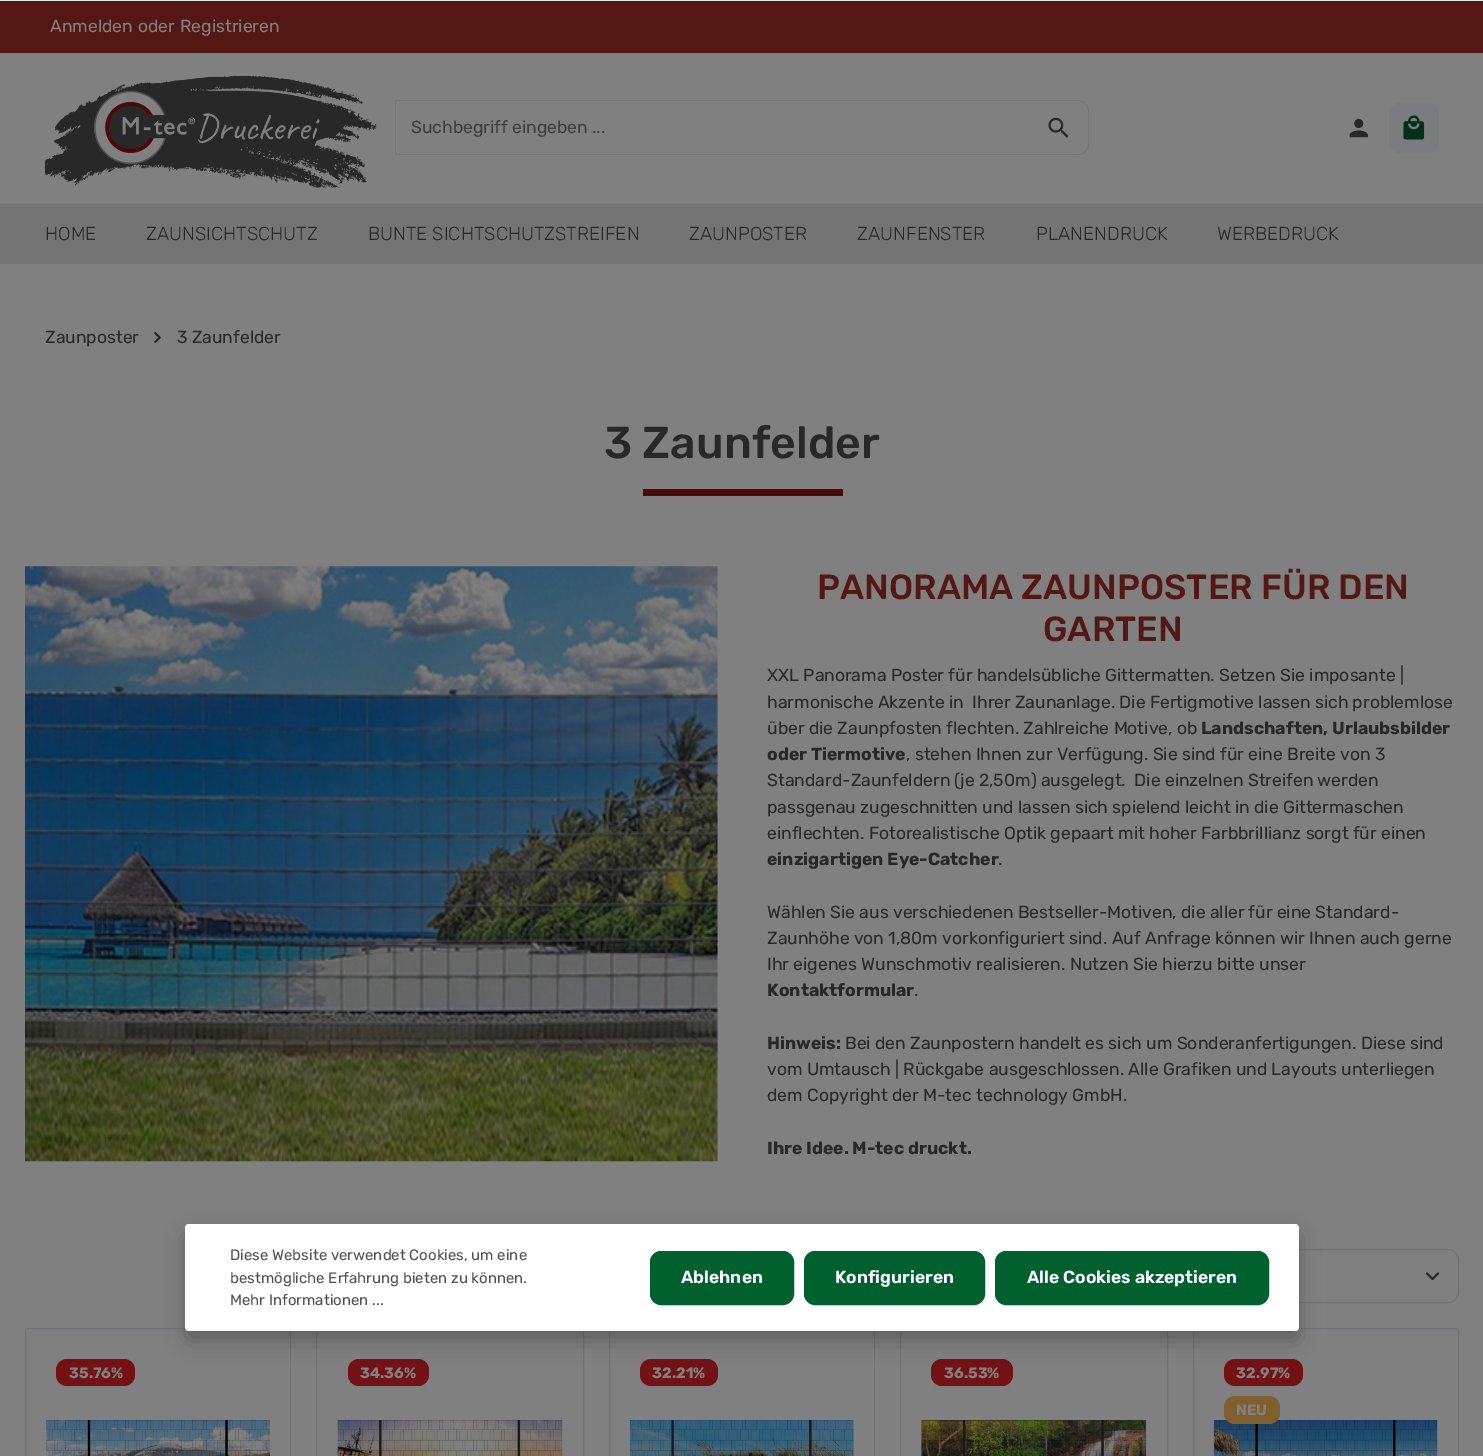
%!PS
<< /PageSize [1483 1456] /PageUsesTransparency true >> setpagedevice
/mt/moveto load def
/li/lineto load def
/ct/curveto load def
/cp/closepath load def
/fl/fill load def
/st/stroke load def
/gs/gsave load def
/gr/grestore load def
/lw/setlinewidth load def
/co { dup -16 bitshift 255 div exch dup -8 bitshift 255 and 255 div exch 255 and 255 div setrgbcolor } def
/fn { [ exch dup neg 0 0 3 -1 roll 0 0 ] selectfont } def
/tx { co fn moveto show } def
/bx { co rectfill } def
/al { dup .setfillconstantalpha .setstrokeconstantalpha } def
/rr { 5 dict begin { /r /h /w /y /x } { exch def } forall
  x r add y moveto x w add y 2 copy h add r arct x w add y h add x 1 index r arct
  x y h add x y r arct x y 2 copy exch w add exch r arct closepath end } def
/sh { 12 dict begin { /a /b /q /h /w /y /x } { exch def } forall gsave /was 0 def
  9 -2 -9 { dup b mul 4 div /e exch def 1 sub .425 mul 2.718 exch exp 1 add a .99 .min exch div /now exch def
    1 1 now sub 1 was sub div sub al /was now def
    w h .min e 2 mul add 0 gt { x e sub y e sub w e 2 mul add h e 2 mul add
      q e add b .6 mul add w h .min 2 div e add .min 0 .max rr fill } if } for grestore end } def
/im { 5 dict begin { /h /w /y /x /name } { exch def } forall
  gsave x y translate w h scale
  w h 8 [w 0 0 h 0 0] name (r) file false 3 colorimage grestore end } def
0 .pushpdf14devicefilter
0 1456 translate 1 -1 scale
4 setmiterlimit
0 0 1483 1456 16#808080 bx
0 1 1483 52 16#531813 bx
(media/1.raw) 45 75 332 113 im
395 100 636 1 16#767676 bx
395 154 636 1 16#767676 bx
395 100 1 55 16#767676 bx
16#808080 co
1030 100 mt 1078 100 li 1084 100 1089 105 1089 111 ct 1089 144 li 1089 150 1084 155 1078 155 ct 1030 155 li cp fl
16#767676 co
1030 100 mt 1078 100 li 1084 100 1089 105 1089 111 ct 1089 144 li 1089 150 1084 155 1078 155 ct 1030 155 li cp 1030 101 mt 1078 101 li 1083 101 1088 106 1088 111 ct 1088 144 li 1088 149 1083 154 1078 154 ct 1030 154 li cp eofill
(media/2.raw) 1048 117 21 21 im
(media/3.raw) 1349 118 19 20 im
16#7B7C7D co
1389 103 50 50 11 rr fl
(media/4.raw) 1403 115 22 25 im
0 204 1483 60 16#747474 bx
0 203 1483 1 16#7B7C7D bx
(media/5.raw) 154 332 7 11 im
643 489 200 7 16#4C0A06 bx
(media/6.raw) 25 566 693 596 im
16#282828 co
1.9 lw
1 setlinecap
1 setlinejoin
1427 1273.5 mt 1432.5 1279 li 1438 1273.5 li st
16#717275 co
1 lw
0 setlinecap
0 setlinejoin
1134.5 1249.5 324 53 10.5 rr st
25.5 1328.5 265 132 3.5 rr st
16#731214 co
56 1359 79 27 11 rr fl
(media/7.raw) 46 1420 224 36 im
16#717275 co
316.5 1328.5 267 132 3.5 rr st
16#731214 co
348 1359 81 27 11 rr fl
(media/8.raw) 337 1420 226 36 im
16#717275 co
609.5 1328.5 265 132 3.5 rr st
16#731214 co
640 1359 78 27 11 rr fl
(media/9.raw) 630 1420 224 36 im
16#717275 co
900.5 1328.5 267 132 3.5 rr st
16#731214 co
931 1359 82 27 11 rr fl
(media/10.raw) 921 1420 226 36 im
16#717275 co
1193.5 1328.5 265 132 3.5 rr st
16#731214 co
1224 1359 79 27 11 rr fl
(media/11.raw) 1213 1420 225 36 im
16#805F2F co
1224 1396 56 28 11 rr fl
0 0 1483 1 16#E2E4E9 bx
16#000000 co
185 1234 1114 107 4 10 .25 sh
16#FFFFFF co
185 1224 1114 107 4 rr fl
16#00602E co
650.5 1251.5 143 53 10.5 rr gs fl gr
st
804.5 1251.5 180 53 10.5 rr gs fl gr
st
995.5 1251.5 273 53 10.5 rr gs fl gr
st
(Anmelden) 50 32 /Rubik-Light 17.5 16#808080 tx
(oder) 138 32 /Rubik-Light 17.5 16#808080 tx
(Registrieren) 180 32 /Rubik-Light 17.5 16#808080 tx
(Suchbegriff eingeben ...) 411 133 /Rubik-Light 17.5 16#3E3E3E tx
(HOME) 45 240 /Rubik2-Light 18.75 16#282828 tx
(ZAUNSICHTSCHUTZ) 146 240 /Rubik2-Light 18.75 16#282828 tx
(BUNTE SICHTSCHUTZSTREIFEN) 368 240 /Rubik2-Light 18.75 16#282828 tx
(ZAUNPOSTER) 689 240 /Rubik2-Light 18.75 16#282828 tx
(ZAUNFENSTER) 857 240 /Rubik2-Light 18.75 16#282828 tx
(PLANENDRUCK) 1036 240 /Rubik2-Light 18.75 16#282828 tx
(WERBEDRUCK) 1217 240 /Rubik2-Light 18.75 16#282828 tx
(Zaunposter) 45 343 /Rubik-Light 17.5 16#282828 tx
(3 Zaunfelder) 177 343 /Rubik-Light 17.5 16#282828 tx
(3 Zaunfelder) 604 458 /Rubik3-Light 44.75 16#282828 tx
(PANORAMA ZAUNPOSTER FÜR DEN) 817 599 /Rubik3-Light 34.9 16#531813 tx
(GARTEN) 1043 641 /Rubik3-Light 34.9 16#531813 tx
(XXL Panorama Poster für handelsübliche Gittermatten. Setzen Sie imposante |) 767 681 /Rubik-Light 17.5 16#282828 tx
(harmonische Akzente in  Ihrer Zaunanlage. Die Fertigmotive lassen sich problemlose) 767 708 /Rubik-Light 17.5 16#282828 tx
(über die Zaunpfosten flechten. Zahlreiche Motive, ob) 767 734 /Rubik-Light 17.5 16#282828 tx
(Landschaften, Urlaubsbilder) 1201 734 /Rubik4-Light 17.5 16#282828 tx
(oder Tiermotive) 767 760 /Rubik4-Light 17.5 16#282828 tx
(, stehen Ihnen zur Verfügung. Sie sind für eine Breite von 3) 906 760 /Rubik-Light 17.5 16#282828 tx
(Standard-Zaunfeldern \(je 2,50m\) ausgelegt.  Die einzelnen Streifen werden) 767 786 /Rubik-Light 17.5 16#282828 tx
(passgenau zugeschnitten und lassen sich spielend leicht in die Gittermaschen) 767 813 /Rubik-Light 17.5 16#282828 tx
(einflechten. Fotorealistische Optik gepaart mit hoher Farbbrillianz sorgt für einen) 767 839 /Rubik-Light 17.5 16#282828 tx
(einzigartigen Eye-Catcher) 767 865 /Rubik4-Light 17.5 16#282828 tx
(.) 998 865 /Rubik-Light 17.5 16#282828 tx
(Wählen Sie aus verschiedenen Bestseller-Motiven, die aller für eine Standard-) 767 918 /Rubik-Light 17.5 16#282828 tx
(Zaunhöhe von 1,80m vorkonfiguriert sind. Auf Anfrage können wir Ihnen auch gerne) 767 944 /Rubik-Light 17.5 16#282828 tx
(Ihr eigenes Wunschmotiv realisieren. Nutzen Sie hierzu bitte unser) 767 970 /Rubik-Light 17.5 16#282828 tx
(Kontaktformular) 767 996 /Rubik4-Light 17.5 16#282828 tx
(.) 914 996 /Rubik-Light 17.5 16#282828 tx
(Hinweis:) 767 1049 /Rubik4-Light 17.5 16#282828 tx
(Bei den Zaunpostern handelt es sich um Sonderanfertigungen. Diese sind) 845 1049 /Rubik-Light 17.5 16#282828 tx
(vom Umtausch | Rückgabe ausgeschlossen. Alle Grafiken und Layouts unterliegen) 767 1075 /Rubik-Light 17.5 16#282828 tx
(dem Copyright der M-tec technology GmbH.) 767 1101 /Rubik-Light 17.5 16#282828 tx
(Ihre Idee. M-tec druckt.) 767 1154 /Rubik4-Light 17.5 16#282828 tx
(35.76%) 69 1378 /Rubik4-Light 15 16#808080 tx
(34.36%) 360 1378 /Rubik4-Light 15 16#808080 tx
(32.21%) 652 1378 /Rubik4-Light 15 16#808080 tx
(36.53%) 944 1378 /Rubik4-Light 15 16#808080 tx
(32.97%) 1236 1378 /Rubik4-Light 15 16#808080 tx
(NEU) 1236 1415 /Rubik4-Light 15 16#808080 tx
(Diese Website verwendet Cookies, um eine) 230 1260 /Rubik-Light 15 16#505050 tx
(bestmögliche Erfahrung bieten zu können.) 230 1283 /Rubik-Light 15 16#505050 tx
(Mehr Informationen ...) 230 1305 /Rubik-Light 15 16#505050 tx
(Ablehnen) 681 1283 /Rubik-SemiBold 17.5 16#FFFFFF tx
(Konfigurieren) 835 1283 /Rubik-SemiBold 17.5 16#FFFFFF tx
(Alle Cookies akzeptieren) 1027 1283 /Rubik-SemiBold 17.5 16#FFFFFF tx
.poppdf14devicefilter showpage
